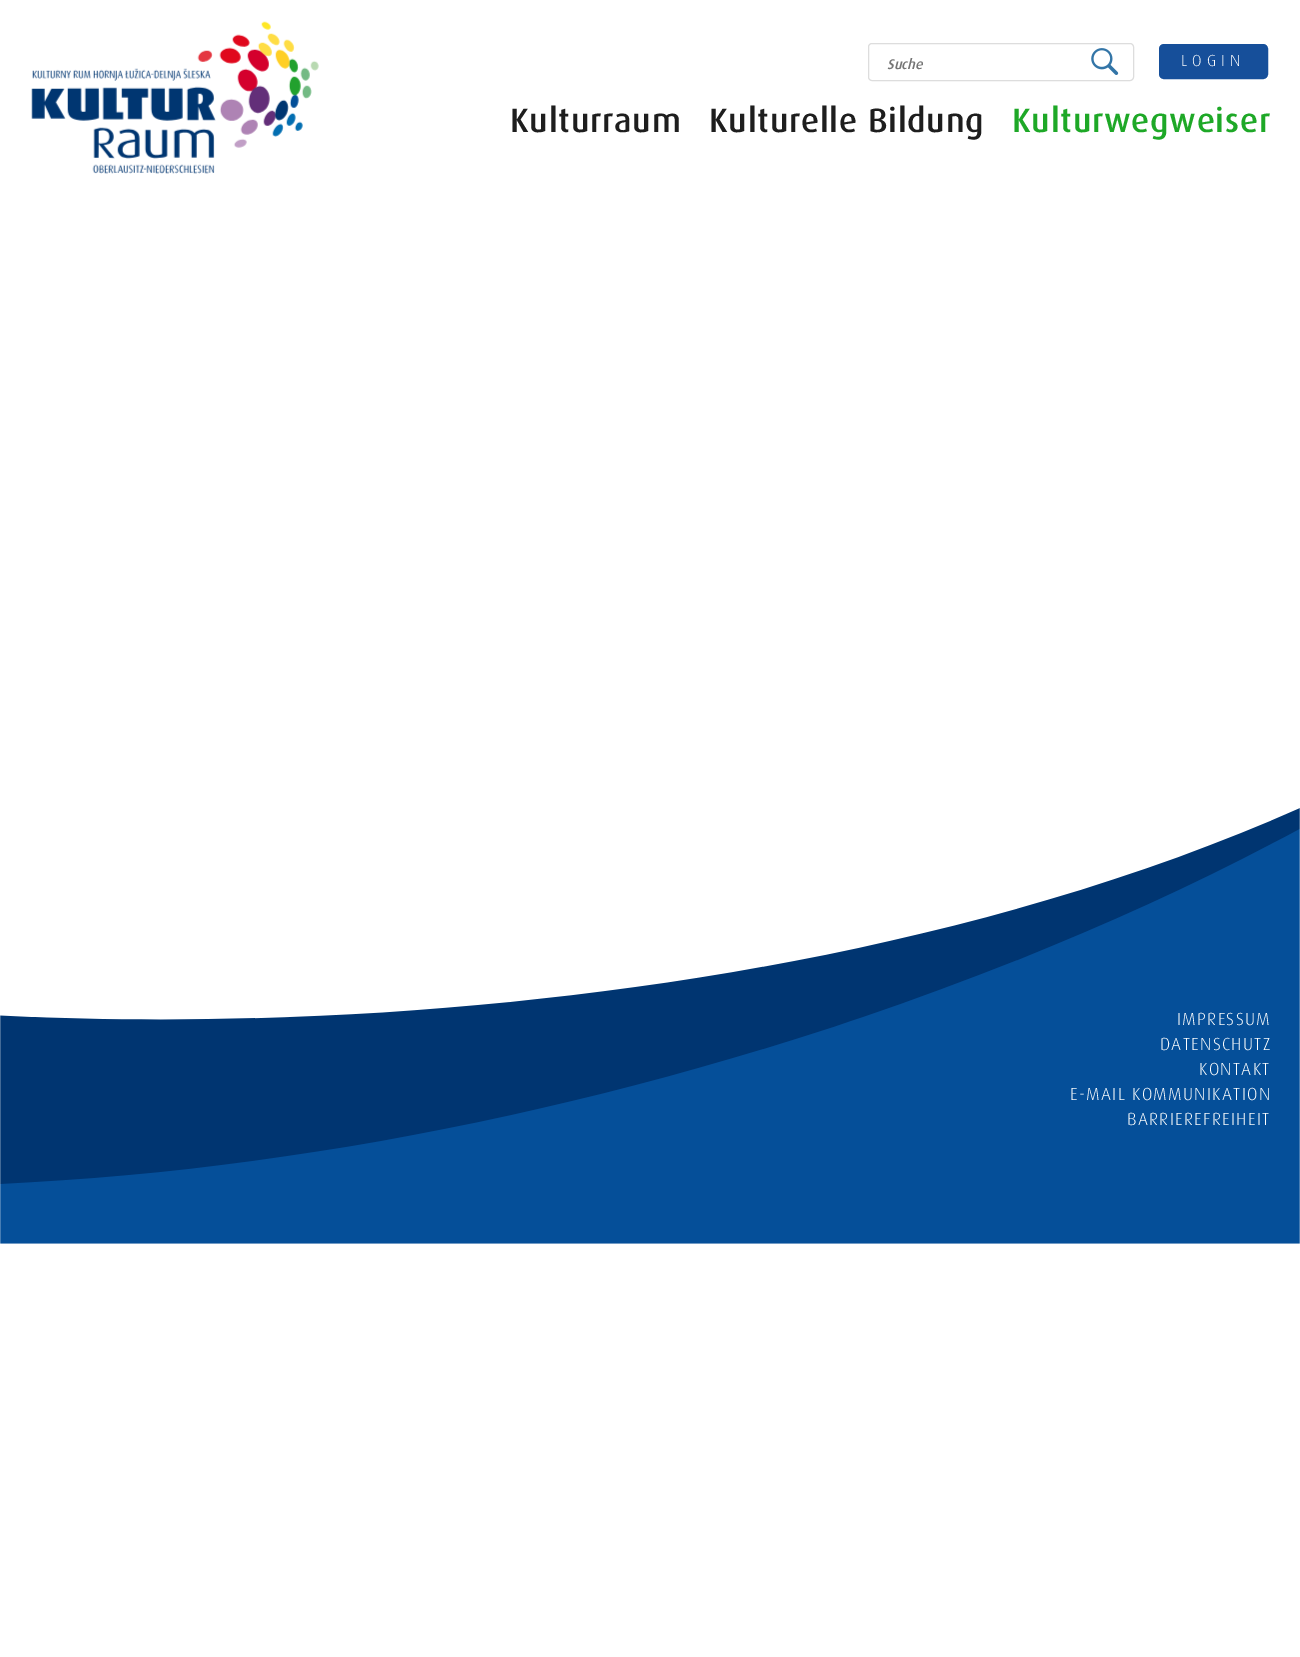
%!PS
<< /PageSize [1300 1657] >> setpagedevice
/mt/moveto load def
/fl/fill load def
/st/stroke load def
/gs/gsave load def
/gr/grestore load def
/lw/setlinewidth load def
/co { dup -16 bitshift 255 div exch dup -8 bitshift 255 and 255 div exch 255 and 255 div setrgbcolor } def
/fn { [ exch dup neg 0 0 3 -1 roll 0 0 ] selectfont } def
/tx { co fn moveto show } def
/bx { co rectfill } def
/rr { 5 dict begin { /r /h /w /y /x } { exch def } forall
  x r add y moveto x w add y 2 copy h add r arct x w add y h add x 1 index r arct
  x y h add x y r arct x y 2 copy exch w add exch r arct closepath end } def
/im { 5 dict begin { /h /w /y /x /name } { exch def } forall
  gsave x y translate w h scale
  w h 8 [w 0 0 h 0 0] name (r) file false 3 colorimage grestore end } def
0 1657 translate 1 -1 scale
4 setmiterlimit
0 0 1300 1657 16#FFFFFF bx
(media/1.raw) 31 21 288 153 im
16#DDDDDD co
868.5 43.5 265 37 3.5 rr st
(media/2.raw) 1091 48 28 27 im
16#164F9A co
1160.5 45.5 106 32 3.5 rr gs fl gr
3 lw
st
(media/3.raw) 0 808 1300 436 im
(Suche) 887 69 /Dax-MediumItalic 14 16#757575 tx
/Dax-Light 16 fn
16#FFFFFF co
1181 66 mt 5 0 (LOGIN) ashow
/Dax-Medium 33.75 fn
16#1E1E1E co
510 132 mt .75 0 (Kulturraum) ashow
709 132 mt .75 0 (Kulturelle Bildung) ashow
16#1EA827 co
1012 132 mt .75 0 (Kulturwegweiser) ashow
/Dax-Light 17.5 fn
16#FFFFFF co
1177 1025 mt 1.3 0 (IMPRESSUM) ashow
1160 1050 mt 1.3 0 (DATENSCHUTZ) ashow
1199 1075 mt 1.3 0 (KONTAKT) ashow
1070 1100 mt 1.3 0 (E-MAIL KOMMUNIKATION) ashow
1127 1125 mt 1.3 0 (BARRIEREFREIHEIT) ashow
showpage
